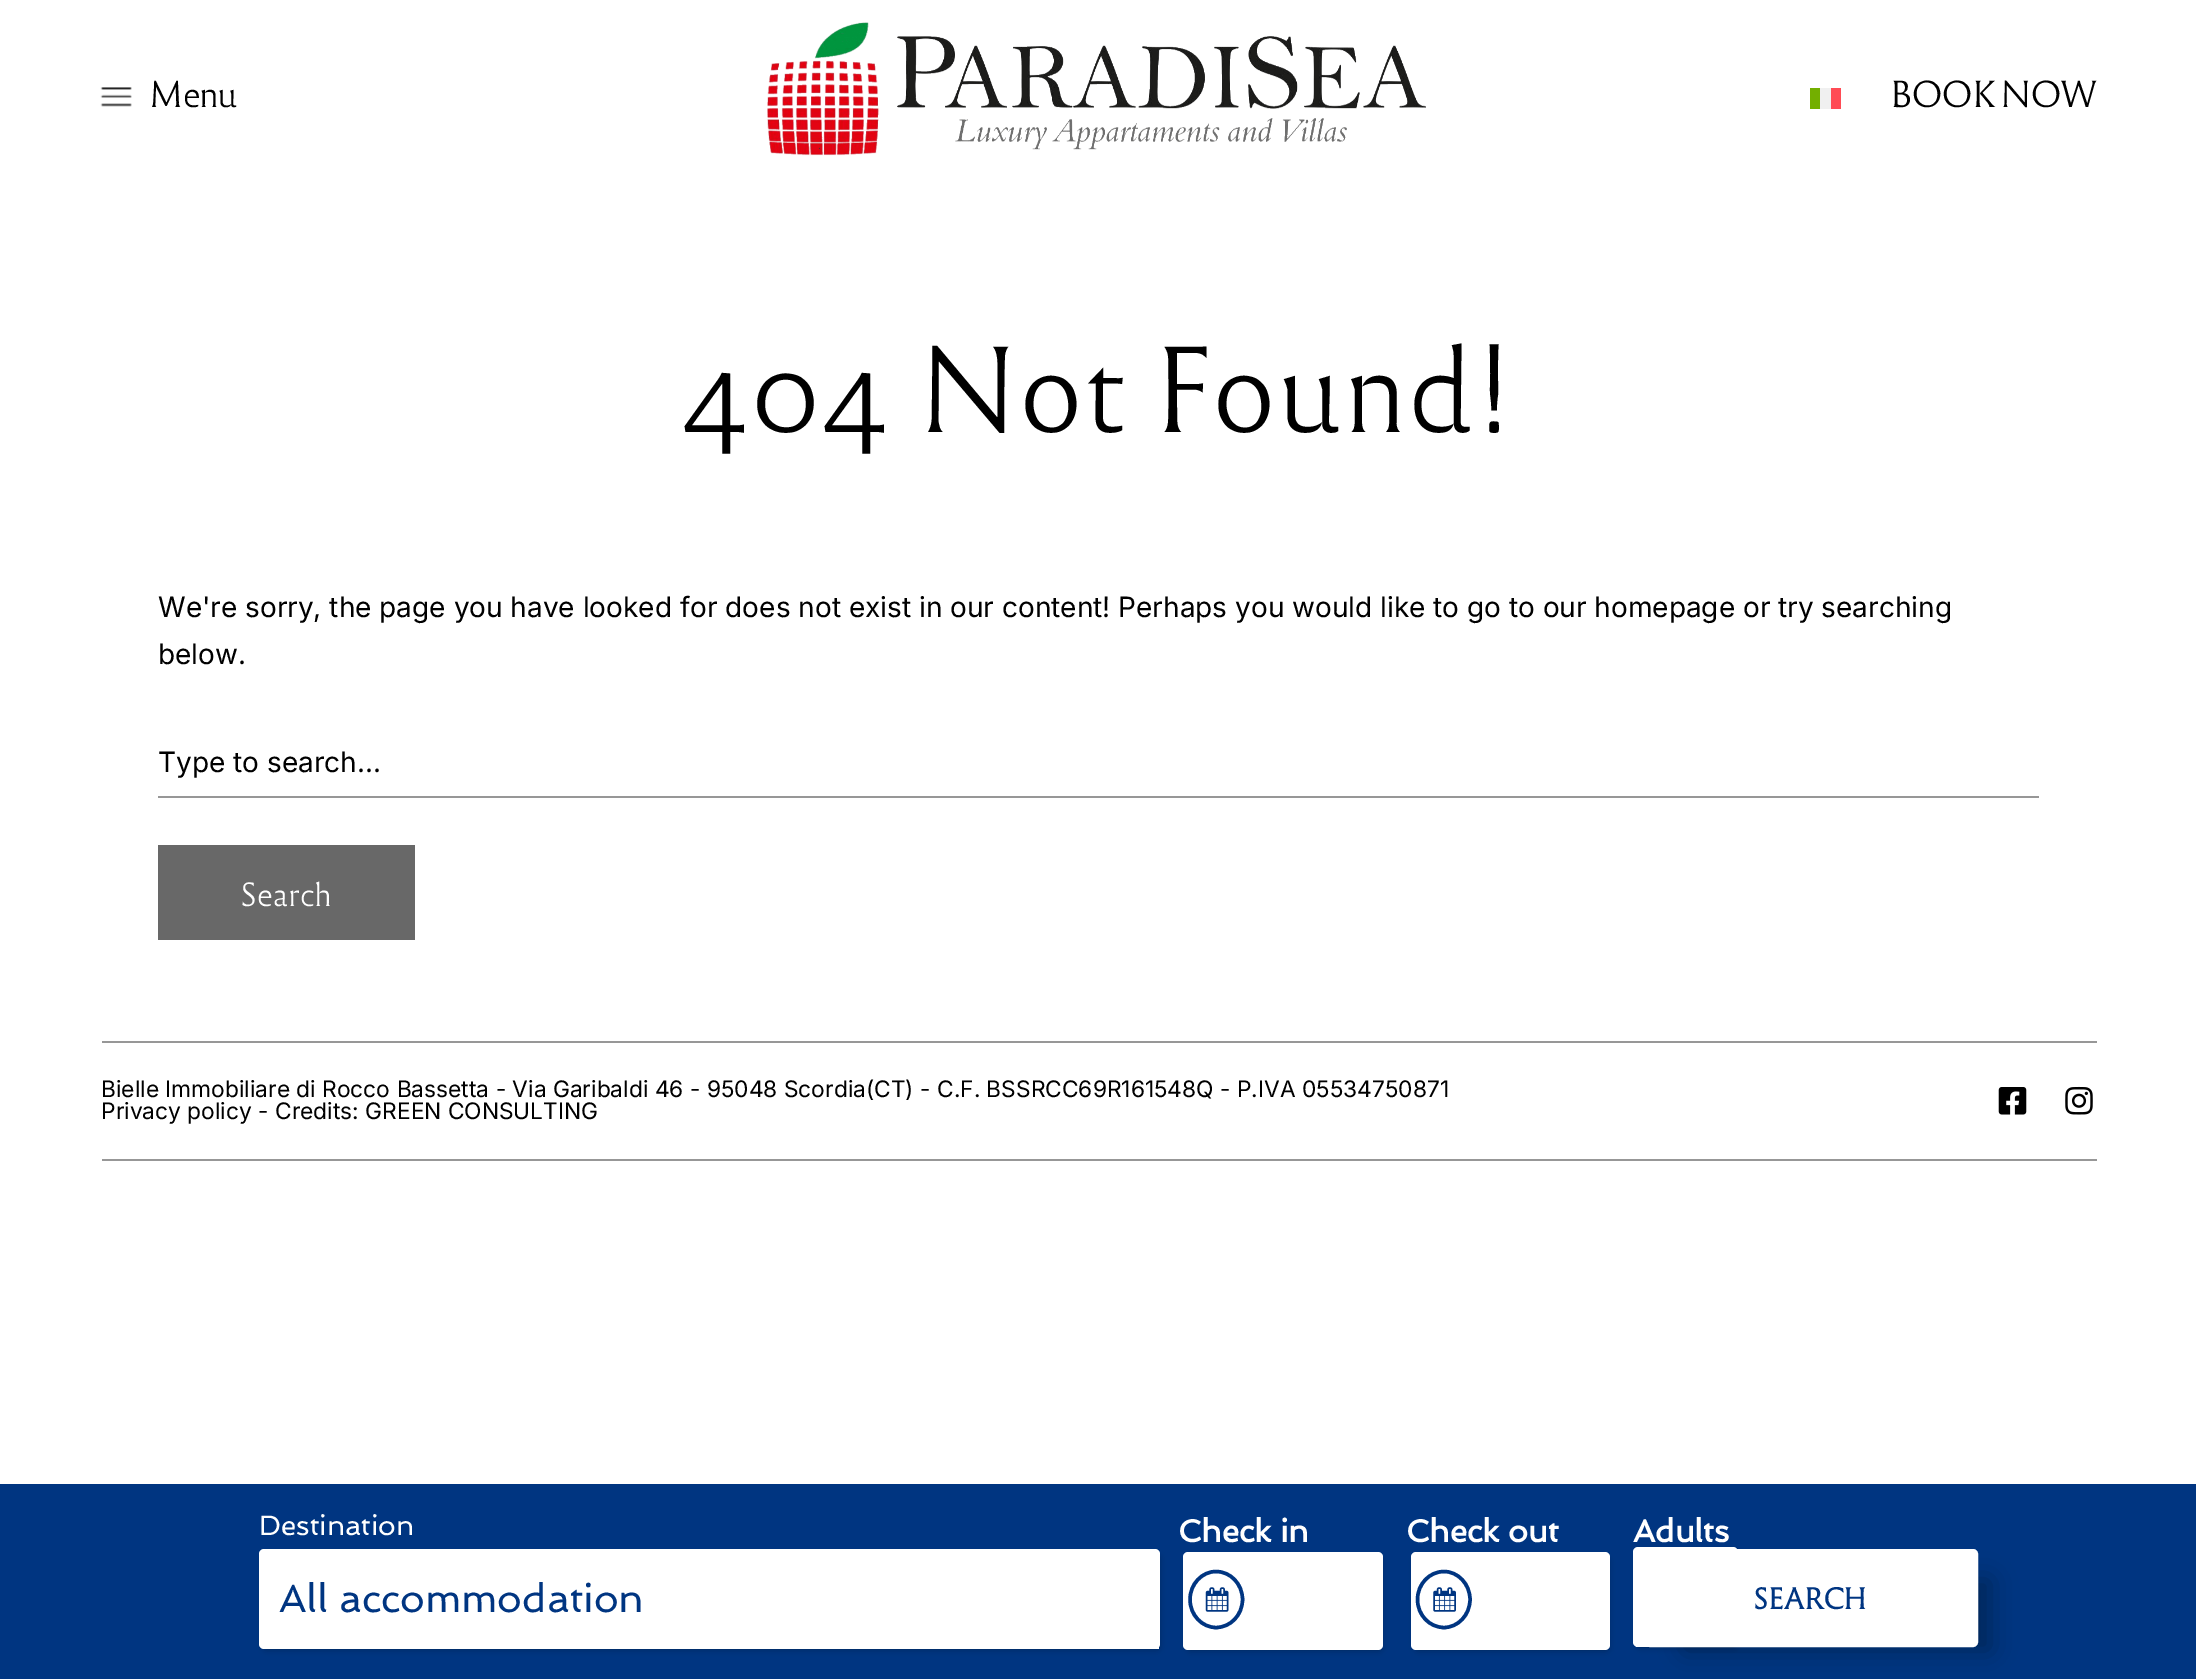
%!PS
<< /PageSize [2196 1679] /PageUsesTransparency true >> setpagedevice
/mt/moveto load def
/ct/curveto load def
/cp/closepath load def
/fl/fill load def
/st/stroke load def
/gs/gsave load def
/gr/grestore load def
/lw/setlinewidth load def
/co { dup -16 bitshift 255 div exch dup -8 bitshift 255 and 255 div exch 255 and 255 div setrgbcolor } def
/fn { [ exch dup neg 0 0 3 -1 roll 0 0 ] selectfont } def
/tx { co fn moveto show } def
/bx { co rectfill } def
/al { dup .setfillconstantalpha .setstrokeconstantalpha } def
/rr { 5 dict begin { /r /h /w /y /x } { exch def } forall
  x r add y moveto x w add y 2 copy h add r arct x w add y h add x 1 index r arct
  x y h add x y r arct x y 2 copy exch w add exch r arct closepath end } def
/sh { 12 dict begin { /a /b /q /h /w /y /x } { exch def } forall gsave /was 0 def
  9 -2 -9 { dup b mul 4 div /e exch def 1 sub .425 mul 2.718 exch exp 1 add a .99 .min exch div /now exch def
    1 1 now sub 1 was sub div sub al /was now def
    w h .min e 2 mul add 0 gt { x e sub y e sub w e 2 mul add h e 2 mul add
      q e add b .6 mul add w h .min 2 div e add .min 0 .max rr fill } if } for grestore end } def
/im { 5 dict begin { /h /w /y /x /name } { exch def } forall
  gsave x y translate w h scale
  w h 8 [w 0 0 h 0 0] name (r) file false 3 colorimage grestore end } def
0 .pushpdf14devicefilter
0 1679 translate 1 -1 scale
4 setmiterlimit
0 0 2196 1679 16#FFFFFF bx
(media/1.raw) 100 87 32 20 im
(media/2.raw) 767 22 659 134 im
1810 88 10 21 16#73AF00 bx
1820 88 11 21 16#F0F0F0 bx
1831 88 10 21 16#FF4B55 bx
158 796 1881 2 16#979797 bx
158 845 257 95 16#686868 bx
102 1041 1995 2 16#979797 bx
(media/3.raw) 1998 1087 29 28 im
(media/4.raw) 2065 1086 28 29 im
102 1159 1995 2 16#979797 bx
0 1484 2196 195 16#003581 bx
16#000000 co
264 1556 895 93 2 3.5 .3 sh
16#FFFFFF co
259 1549 901 100 5 rr fl
263 1647 896 2 16#FFFFFF bx
16#000000 co
1188 1559 193 91 2 3.5 .3 sh
16#FFFFFF co
1183 1552 200 98 5 rr fl
16#003581 co
3.5 lw
1216 1571.5 mt 1230.5 1571.5 1242.5 1584 1242.5 1599.5 ct 1242.5 1615 1230.5 1627.5 1216 1627.5 ct 1202 1627.5 1190 1615 1190 1599.5 ct 1190 1584 1202 1571.5 1216 1571.5 ct cp st
(media/5.raw) 1205 1587 24 25 im
16#000000 co
1416 1559 192 91 2 3.5 .3 sh
16#FFFFFF co
1411 1552 199 98 5 rr fl
16#003581 co
1444 1571.5 mt 1458 1571.5 1470 1584 1470 1599.5 ct 1470 1615 1458 1627.5 1444 1627.5 ct 1429.5 1627.5 1417.5 1615 1417.5 1599.5 ct 1417.5 1584 1429.5 1571.5 1444 1571.5 ct cp st
(media/6.raw) 1433 1587 23 25 im
16#000000 co
1638 1554 98 93 2 3.5 .3 sh
16#FFFFFF co
1633 1547 105 100 5 rr fl
1636 1646 2 1 16#FFFFFF bx
16#000000 co
1685 1580 305 70 0 13 .3 sh
16#FFFFFF co
1646 1550 331 96 4 rr gs fl gr
2 lw
st
/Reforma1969-Light 35 fn
16#000000 co
148 107 mt -1.75 0 (Menu) ashow
1890 107 mt -1.75 0 (BOOK NOW) ashow
(404 Not Found!) 682 432 /Reforma1969-Light 113.75 16#000000 tx
(We're sorry, the page you have looked for does not exist in our content! Perhaps you would like to go to our homepage or try searching) 158 617 /Inter-Regular 28 16#000000 tx
(below.) 158 664 /Inter-Regular 28 16#000000 tx
(Type to search...) 158 772 /Inter-Regular 28 16#000000 tx
(Search) 240 906 /Reforma1969-Light 31.5 16#FFFFFF tx
(Bielle Immobiliare di Rocco Bassetta - Via Garibaldi 46 - 95048 Scordia\(CT\) - C.F. BSSRCC69R161548Q - P.IVA 05534750871) 101 1097 /Inter-Regular 22.75 16#000000 tx
(Privacy policy - Credits: GREEN CONSULTING) 101 1119 /Inter-Regular 22.75 16#000000 tx
(Destination) 259 1535 /Spinnaker-Regular 28 16#FFFFFF tx
(All accommodation) 279 1612 /Spinnaker-Regular 39.25 16#003581 tx
(Check in) 1178 1542 /Spinnaker-Bold 31.5 16#FFFFFF tx
(Check out) 1406 1542 /Spinnaker-Bold 31.5 16#FFFFFF tx
(Adults) 1633 1542 /Spinnaker-Bold 31.5 16#FFFFFF tx
(SEARCH) 1753 1609 /Reforma1969-Bold 28 16#003581 tx
.poppdf14devicefilter showpage
